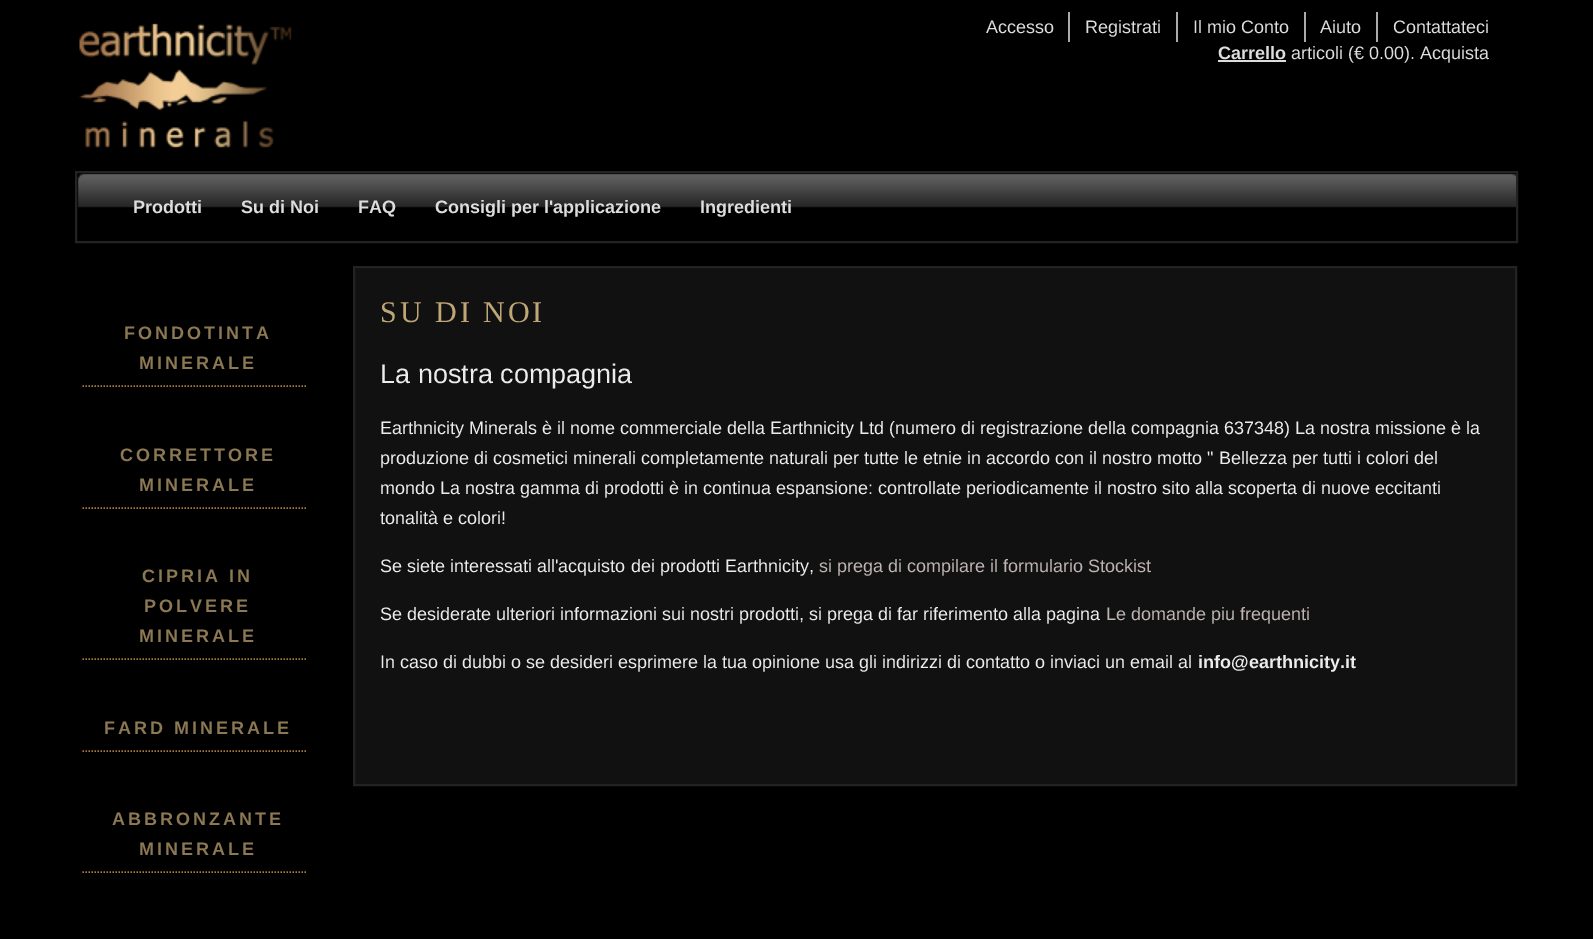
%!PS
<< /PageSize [1593 939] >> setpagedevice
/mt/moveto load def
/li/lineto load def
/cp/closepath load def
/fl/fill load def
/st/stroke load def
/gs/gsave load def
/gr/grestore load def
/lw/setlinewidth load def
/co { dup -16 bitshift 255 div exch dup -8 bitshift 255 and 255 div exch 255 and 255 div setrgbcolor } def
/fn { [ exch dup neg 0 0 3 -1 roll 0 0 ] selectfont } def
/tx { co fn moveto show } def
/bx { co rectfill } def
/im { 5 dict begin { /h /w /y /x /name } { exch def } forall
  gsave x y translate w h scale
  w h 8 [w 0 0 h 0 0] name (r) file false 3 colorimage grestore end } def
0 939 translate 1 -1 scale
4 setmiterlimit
0 0 1593 939 16#000000 bx
(media/1.raw) 79 23 213 125 im
1068 12 2 30 16#AAAAAA bx
1176 12 2 30 16#AAAAAA bx
1304 12 2 30 16#AAAAAA bx
1376 12 2 30 16#AAAAAA bx
1218 60 68 2 16#DDDDDD bx
(media/2.raw) 77 173 1439 35 im
16#232323 co
2 lw
76 172 1441 70 rectstroke
16#A67D3D co
1.5 lw
[1.5 1.5] 0 setdash
82.5 386 mt 307.5 386 li st
82.5 508 mt 307.5 508 li st
82.5 659 mt 307.5 659 li st
82.5 751 mt 307.5 751 li st
82.5 872 mt 307.5 872 li st
16#111111 co
354 267 mt 1516 267 li 1516 785 li 354 785 li cp gs fl gr
16#232323 co
2 lw
[] 0 setdash
st
(Accesso) 986 33 /LiberationSans-Regular 18 16#DDDDDD tx
(Registrati) 1085 33 /LiberationSans-Regular 18 16#DDDDDD tx
(Il mio Conto) 1193 33 /LiberationSans-Regular 18 16#DDDDDD tx
(Aiuto) 1320 33 /LiberationSans-Regular 18 16#DDDDDD tx
(Contattateci) 1393 33 /LiberationSans-Regular 18 16#DDDDDD tx
(Carrello) 1218 59 /LiberationSans-Bold 18 16#DDDDDD tx
(articoli \(€ 0.00\). Acquista) 1291 59 /LiberationSans-Regular 18 16#DDDDDD tx
(Prodotti) 133 213 /LiberationSans-Bold 18 16#DDDDDD tx
(Su di Noi) 241 213 /LiberationSans-Bold 18 16#DDDDDD tx
(FAQ) 358 213 /LiberationSans-Bold 18 16#DDDDDD tx
(Consigli per l'applicazione) 435 213 /LiberationSans-Bold 18 16#DDDDDD tx
(Ingredienti) 700 213 /LiberationSans-Bold 18 16#DDDDDD tx
16#8C7853 co
124 339 mt 3 0 (FONDOTINTA) ashow
139 369 mt 3 0 (MINERALE) ashow
120 461 mt 3 0 (CORRETTORE) ashow
139 491 mt 3 0 (MINERALE) ashow
142 582 mt 3 0 (CIPRIA IN) ashow
144 612 mt 3 0 (POLVERE) ashow
139 642 mt 3 0 (MINERALE) ashow
104 734 mt 3 0 (FARD MINERALE) ashow
112 825 mt 3 0 (ABBRONZANTE) ashow
139 855 mt 3 0 (MINERALE) ashow
/LiberationSerif-Regular 30 fn
16#BFA677 co
380 322 mt 3 0 (SU DI NOI) ashow
(La nostra compagnia) 380 383 /LiberationSans-Regular 27 16#ECECEC tx
(Earthnicity Minerals è il nome commerciale della Earthnicity Ltd \(numero di registrazione della compagnia 637348\) La nostra missione è la) 380 434 /LiberationSans-Regular 18 16#ECECEC tx
(produzione di cosmetici minerali completamente naturali per tutte le etnie in accordo con il nostro motto " Bellezza per tutti i colori del) 380 464 /LiberationSans-Regular 18 16#ECECEC tx
(mondo La nostra gamma di prodotti è in continua espansione: controllate periodicamente il nostro sito alla scoperta di nuove eccitanti) 380 494 /LiberationSans-Regular 18 16#ECECEC tx
(tonalità e colori!) 380 524 /LiberationSans-Regular 18 16#ECECEC tx
(Se siete interessati all'acquisto dei prodotti Earthnicity,) 380 572 /LiberationSans-Regular 18 16#ECECEC tx
(si prega di compilare il formulario Stockist) 819 572 /LiberationSans-Regular 18 16#BFB3B3 tx
(Se desiderate ulteriori informazioni sui nostri prodotti, si prega di far riferimento alla pagina) 380 620 /LiberationSans-Regular 18 16#ECECEC tx
(Le domande piu frequenti) 1106 620 /LiberationSans-Regular 18 16#BFB3B3 tx
(In caso di dubbi o se desideri esprimere la tua opinione usa gli indirizzi di contatto o inviaci un email al) 380 668 /LiberationSans-Regular 18 16#ECECEC tx
(info@earthnicity.it) 1198 668 /LiberationSans-Bold 18 16#ECECEC tx
showpage
